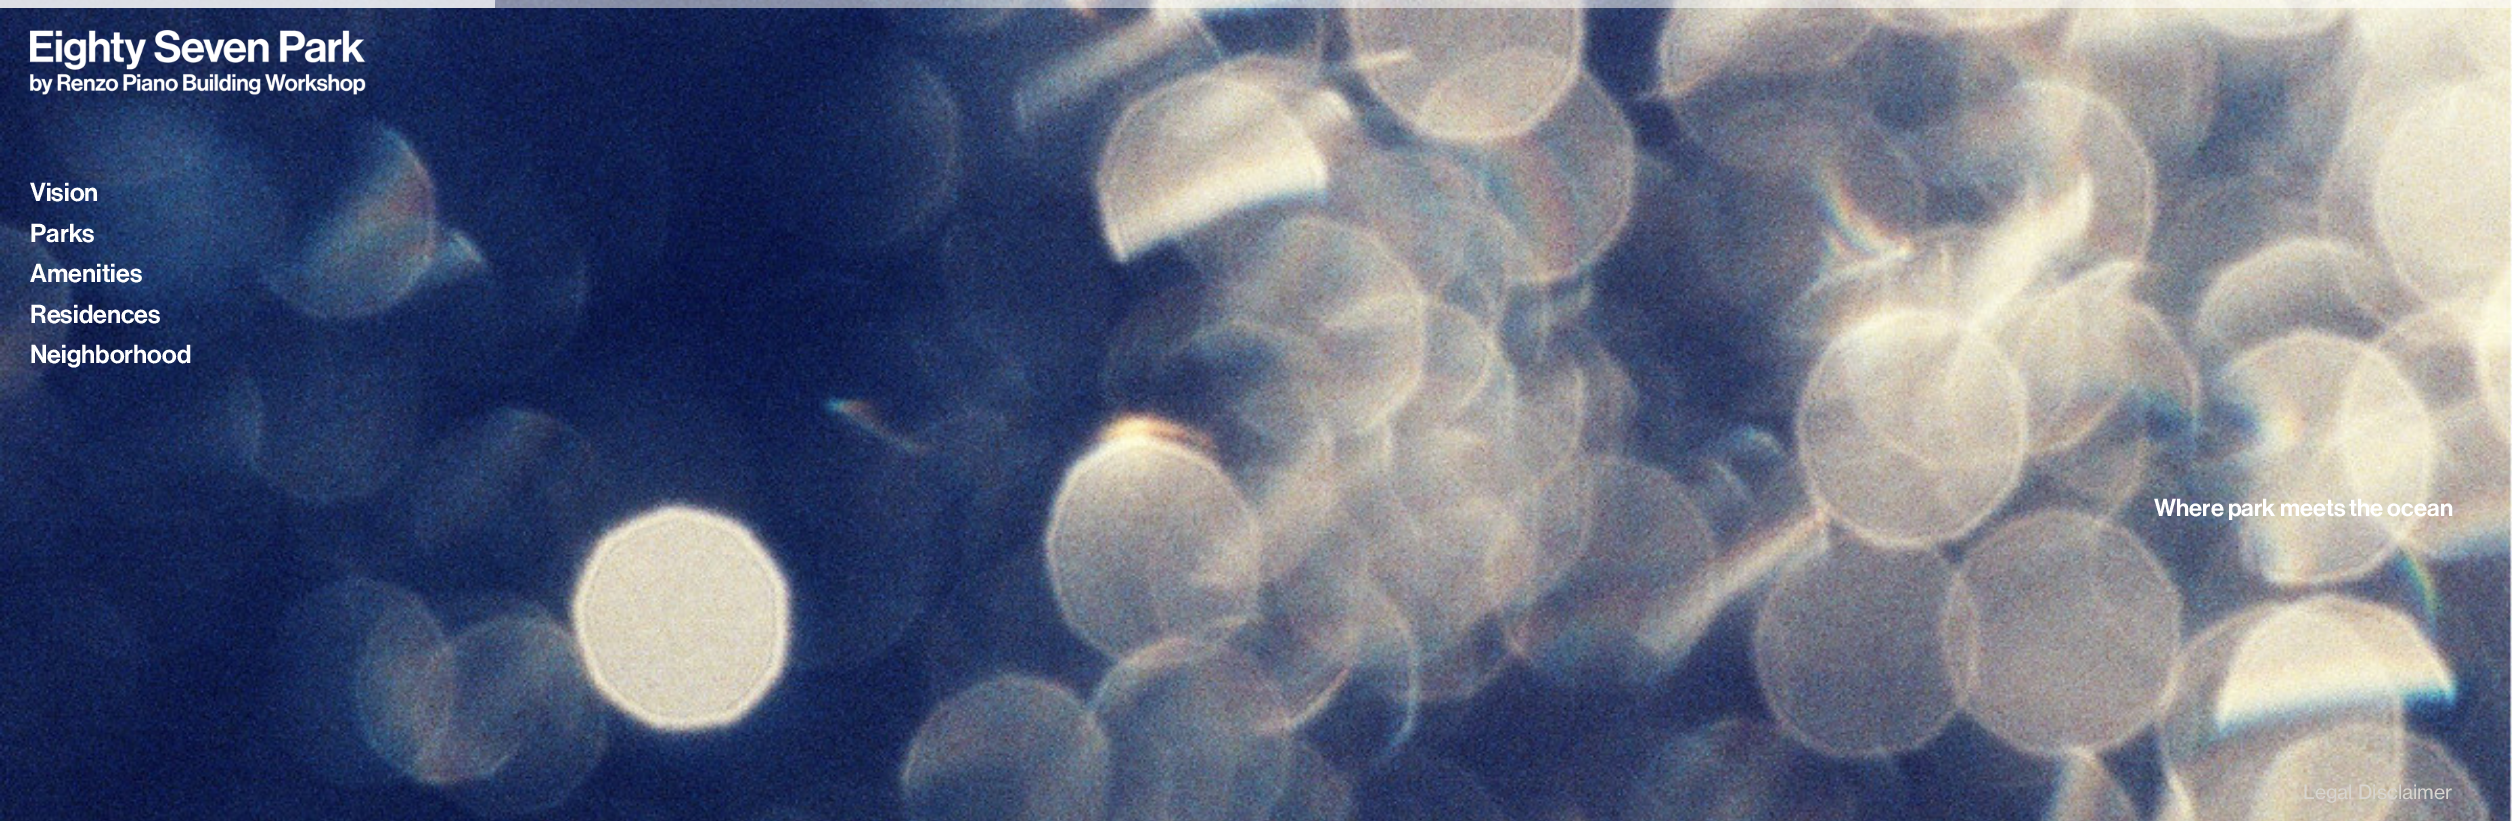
%!PS
<< /PageSize [2512 821] /PageUsesTransparency true >> setpagedevice
/co { dup -16 bitshift 255 div exch dup -8 bitshift 255 and 255 div exch 255 and 255 div setrgbcolor } def
/fn { [ exch dup neg 0 0 3 -1 roll 0 0 ] selectfont } def
/tx { co fn moveto show } def
/bx { co rectfill } def
/al { dup .setfillconstantalpha .setstrokeconstantalpha } def
/im { 5 dict begin { /h /w /y /x /name } { exch def } forall
  gsave x y translate w h scale
  w h 8 [w 0 0 h 0 0] name (r) file false 3 colorimage grestore end } def
0 .pushpdf14devicefilter
0 821 translate 1 -1 scale
4 setmiterlimit
0 0 2512 821 16#FFFFFF bx
(media/2.raw) 0 0 2512 821 im
(media/1.raw) 30 30 336 65 im
0.5 al
0 0 2512 8 16#FFFFFF bx
0.7 al
0 0 495 8 16#FFFFFF bx
1 al
(Vision) 30 201 /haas-Medium 25.5 16#FFFFFF tx
(Parks) 30 242 /haas-Medium 25.5 16#FFFFFF tx
(Amenities) 30 282 /haas-Medium 25.5 16#FFFFFF tx
(Residences) 30 323 /haas-Medium 25.5 16#FFFFFF tx
(Neighborhood) 30 363 /haas-Medium 25.5 16#FFFFFF tx
(Where park meets the ocean) 2154 516 /haas-Medium 24 16#FFFFFF tx
(Legal Disclaimer) 2303 799 /haas-Regular 19.5 16#D8D5D0 tx
.poppdf14devicefilter showpage
